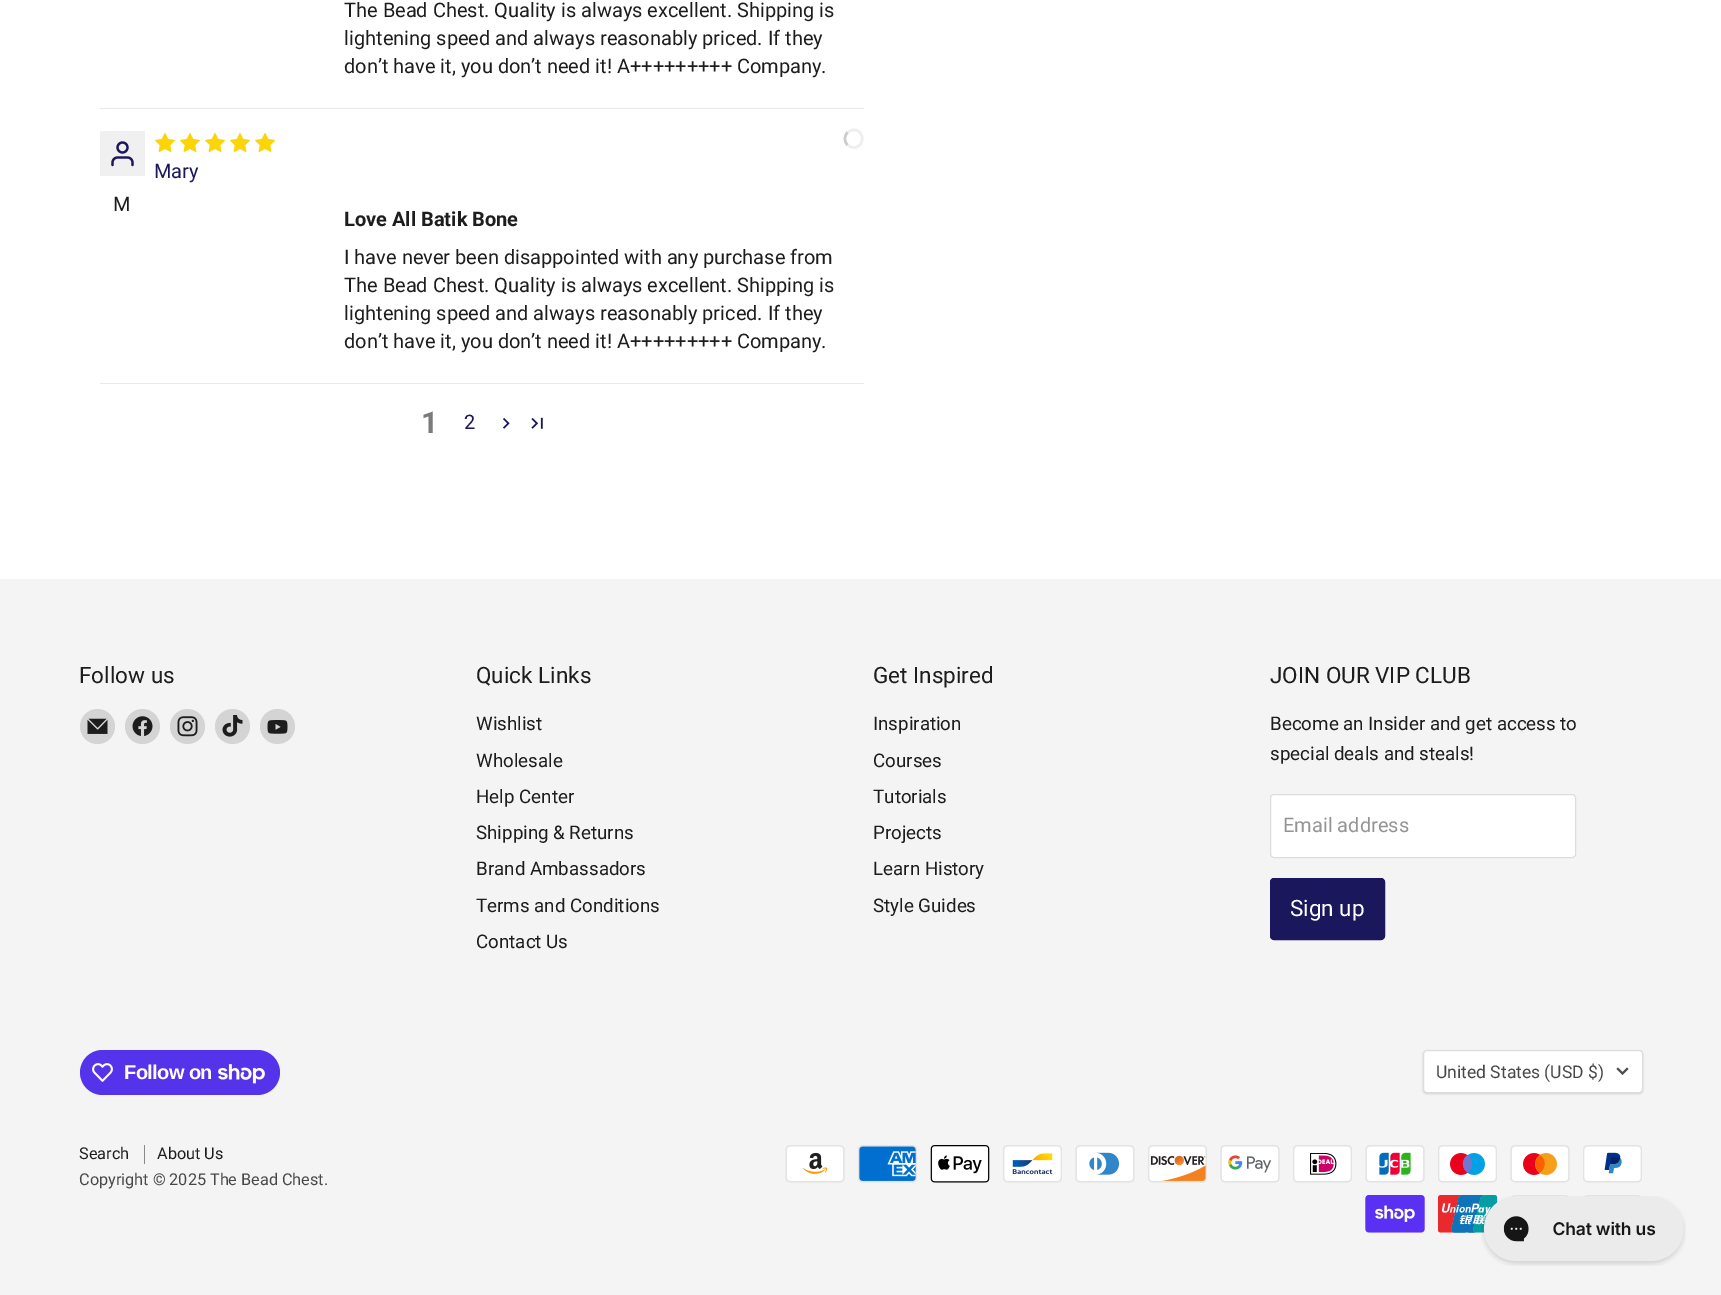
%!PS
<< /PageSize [1721 1295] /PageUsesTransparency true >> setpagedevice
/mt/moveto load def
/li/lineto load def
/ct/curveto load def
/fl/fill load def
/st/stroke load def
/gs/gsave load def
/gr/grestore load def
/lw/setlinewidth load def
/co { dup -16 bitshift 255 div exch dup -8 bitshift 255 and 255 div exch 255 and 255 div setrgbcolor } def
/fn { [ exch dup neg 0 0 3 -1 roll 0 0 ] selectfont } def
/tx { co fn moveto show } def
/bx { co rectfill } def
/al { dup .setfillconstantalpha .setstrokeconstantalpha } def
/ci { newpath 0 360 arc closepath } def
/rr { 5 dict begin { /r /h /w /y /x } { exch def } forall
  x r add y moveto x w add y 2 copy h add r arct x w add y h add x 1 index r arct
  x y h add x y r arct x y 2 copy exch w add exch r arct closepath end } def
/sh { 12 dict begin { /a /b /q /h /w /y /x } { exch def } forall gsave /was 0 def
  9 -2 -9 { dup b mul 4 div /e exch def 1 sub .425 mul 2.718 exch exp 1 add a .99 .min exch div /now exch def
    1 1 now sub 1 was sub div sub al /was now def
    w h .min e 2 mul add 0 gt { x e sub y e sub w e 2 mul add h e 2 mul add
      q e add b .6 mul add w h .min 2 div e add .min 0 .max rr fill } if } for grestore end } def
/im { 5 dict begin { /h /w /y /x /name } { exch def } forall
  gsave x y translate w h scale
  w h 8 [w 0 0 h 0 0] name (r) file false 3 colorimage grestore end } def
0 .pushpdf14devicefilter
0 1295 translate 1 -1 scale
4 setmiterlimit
0 0 1721 1295 16#FFFFFF bx
100 108 764 1 16#E8E8EF bx
(media/1.raw) 155 133 20 19 im
(media/1.raw) 180 133 20 19 im
(media/1.raw) 205 133 20 19 im
(media/1.raw) 230 133 20 19 im
(media/1.raw) 255 133 20 19 im
16#EEEEEE co
2.5 lw
847.5 132.5 mt 849.5 130.5 852.5 129.5 855.5 130 ct 865.5 132 864 147.5 854 147.5 ct 851.5 147.5 849 146.5 847.5 145 ct st
16#CCCCCC co
847.5 145 mt 844 141.5 844 136 847.5 132.5 ct st
100 131 45 45 16#F0F0F0 bx
(media/2.raw) 111 141 23 26 im
100 383 764 1 16#E8E8EF bx
(media/3.raw) 503 417 7 12 im
(media/4.raw) 531 417 12 12 im
0 579 1721 716 16#F4F4F4 bx
16#D4D4D4 co
97.5 726.5 17.5 ci fl
(media/5.raw) 87 718 21 16 im
142.5 726.5 17.5 ci fl
(media/6.raw) 132 716 21 20 im
187.5 726.5 17.5 ci fl
(media/7.raw) 177 716 21 21 im
232.5 726.5 17.5 ci fl
(media/8.raw) 222 715 21 22 im
277.5 726.5 17.5 ci fl
(media/9.raw) 267 720 21 14 im
16#FFFFFF co
1270.5 794.5 305 63 3.5 rr gs fl gr
16#DDDDDD co
1 lw
st
16#1B175D co
1270.5 878.5 114 61 3.5 rr gs fl gr
st
16#5433EB co
80 1050 200 45 22.5 rr fl
(media/10.raw) 92 1063 21 19 im
(media/11.raw) 218 1064 47 20 im
16#000000 co
1423 1051 220 43 4 1 .15 sh
16#FFFFFF co
1423.5 1050.5 219 42 3.5 rr gs fl gr
16#DDDDDD co
st
16#4D4D4D co
2 lw
2 setlinecap
1622.5 1073.5 mt 1627 1069 li 1622.5 1073.5 mt 1618 1069 li st
144 1145 1 19 16#898989 bx
(media/12.raw) 785 1145 60 38 im
(media/13.raw) 858 1145 59 38 im
(media/14.raw) 930 1145 60 38 im
(media/15.raw) 1003 1145 59 38 im
(media/16.raw) 1075 1145 60 38 im
(media/17.raw) 1148 1145 59 38 im
(media/18.raw) 1220 1145 60 38 im
(media/19.raw) 1293 1145 59 38 im
(media/20.raw) 1365 1145 60 38 im
(media/21.raw) 1438 1145 59 38 im
(media/22.raw) 1510 1145 60 38 im
(media/23.raw) 1583 1145 59 38 im
(media/24.raw) 1365 1195 60 38 im
(media/25.raw) 1438 1195 60 38 im
(media/26.raw) 1511 1195 58 2 im
(media/27.raw) 1584 1195 57 2 im
(media/28.raw) 1481 1196 205 70 im
(The Bead Chest. Quality is always excellent. Shipping is) 344 17 /Roboto-Regular 20 16#1D1D1D tx
(lightening speed and always reasonably priced. If they) 344 45 /Roboto-Regular 20 16#1D1D1D tx
(don’t have it, you don’t need it! A+++++++++ Company.) 344 73 /Roboto-Regular 20 16#1D1D1D tx
(Mary) 154 178 /Roboto-Regular 20 16#1B175D tx
(M) 113 211 /Roboto-Regular 20 16#1D1D1D tx
(Love All Batik Bone) 344 226 /Roboto-Bold 20 16#1D1D1D tx
(I have never been disappointed with any purchase from) 344 264 /Roboto-Regular 20 16#1D1D1D tx
(The Bead Chest. Quality is always excellent. Shipping is) 344 292 /Roboto-Regular 20 16#1D1D1D tx
(lightening speed and always reasonably priced. If they) 344 320 /Roboto-Regular 20 16#1D1D1D tx
(don’t have it, you don’t need it! A+++++++++ Company.) 344 348 /Roboto-Regular 20 16#1D1D1D tx
(1) 421 433 /Roboto-Bold 30 16#7B7B7B tx
(2) 464 429 /Roboto-Regular 20 16#1B175D tx
(Follow us) 79 683 /Roboto-Regular 22.5 16#1D1D1D tx
(Quick Links) 476 683 /Roboto-Regular 22.5 16#1D1D1D tx
(Wishlist) 476 730 /Roboto-Regular 18.75 16#1D1D1D tx
(Wholesale) 476 767 /Roboto-Regular 18.75 16#1D1D1D tx
(Help Center) 476 803 /Roboto-Regular 18.75 16#1D1D1D tx
(Shipping & Returns) 476 839 /Roboto-Regular 18.75 16#1D1D1D tx
(Brand Ambassadors) 476 875 /Roboto-Regular 18.75 16#1D1D1D tx
(Terms and Conditions) 476 912 /Roboto-Regular 18.75 16#1D1D1D tx
(Contact Us) 476 948 /Roboto-Regular 18.75 16#1D1D1D tx
(Get Inspired) 873 683 /Roboto-Regular 22.5 16#1D1D1D tx
(Inspiration) 873 730 /Roboto-Regular 18.75 16#1D1D1D tx
(Courses) 873 767 /Roboto-Regular 18.75 16#1D1D1D tx
(Tutorials) 873 803 /Roboto-Regular 18.75 16#1D1D1D tx
(Projects) 873 839 /Roboto-Regular 18.75 16#1D1D1D tx
(Learn History) 873 875 /Roboto-Regular 18.75 16#1D1D1D tx
(Style Guides) 873 912 /Roboto-Regular 18.75 16#1D1D1D tx
(JOIN OUR VIP CLUB) 1270 683 /Roboto-Regular 22.5 16#1D1D1D tx
(Become an Insider and get access to) 1270 730 /Roboto-Regular 18.75 16#1D1D1D tx
(special deals and steals!) 1270 760 /Roboto-Regular 18.75 16#1D1D1D tx
(Email address) 1283 832 /Roboto-Regular 20 16#949494 tx
(Sign up) 1290 916 /Roboto-Regular 22.5 16#FFFFFF tx
/LiberationSans-Bold 20 fn
124 1079 mt -.6 0 (Follow on) ashow
(United States \(USD $\)) 1436 1078 /Roboto-Regular 17.5 16#484848 tx
(Search) 79 1159 /Roboto-Regular 16.25 16#1D1D1D tx
(About Us) 157 1159 /Roboto-Regular 16.25 16#1D1D1D tx
(Copyright © 2025 The Bead Chest.) 79 1185 /Roboto-Regular 16.25 16#484848 tx
.poppdf14devicefilter showpage
